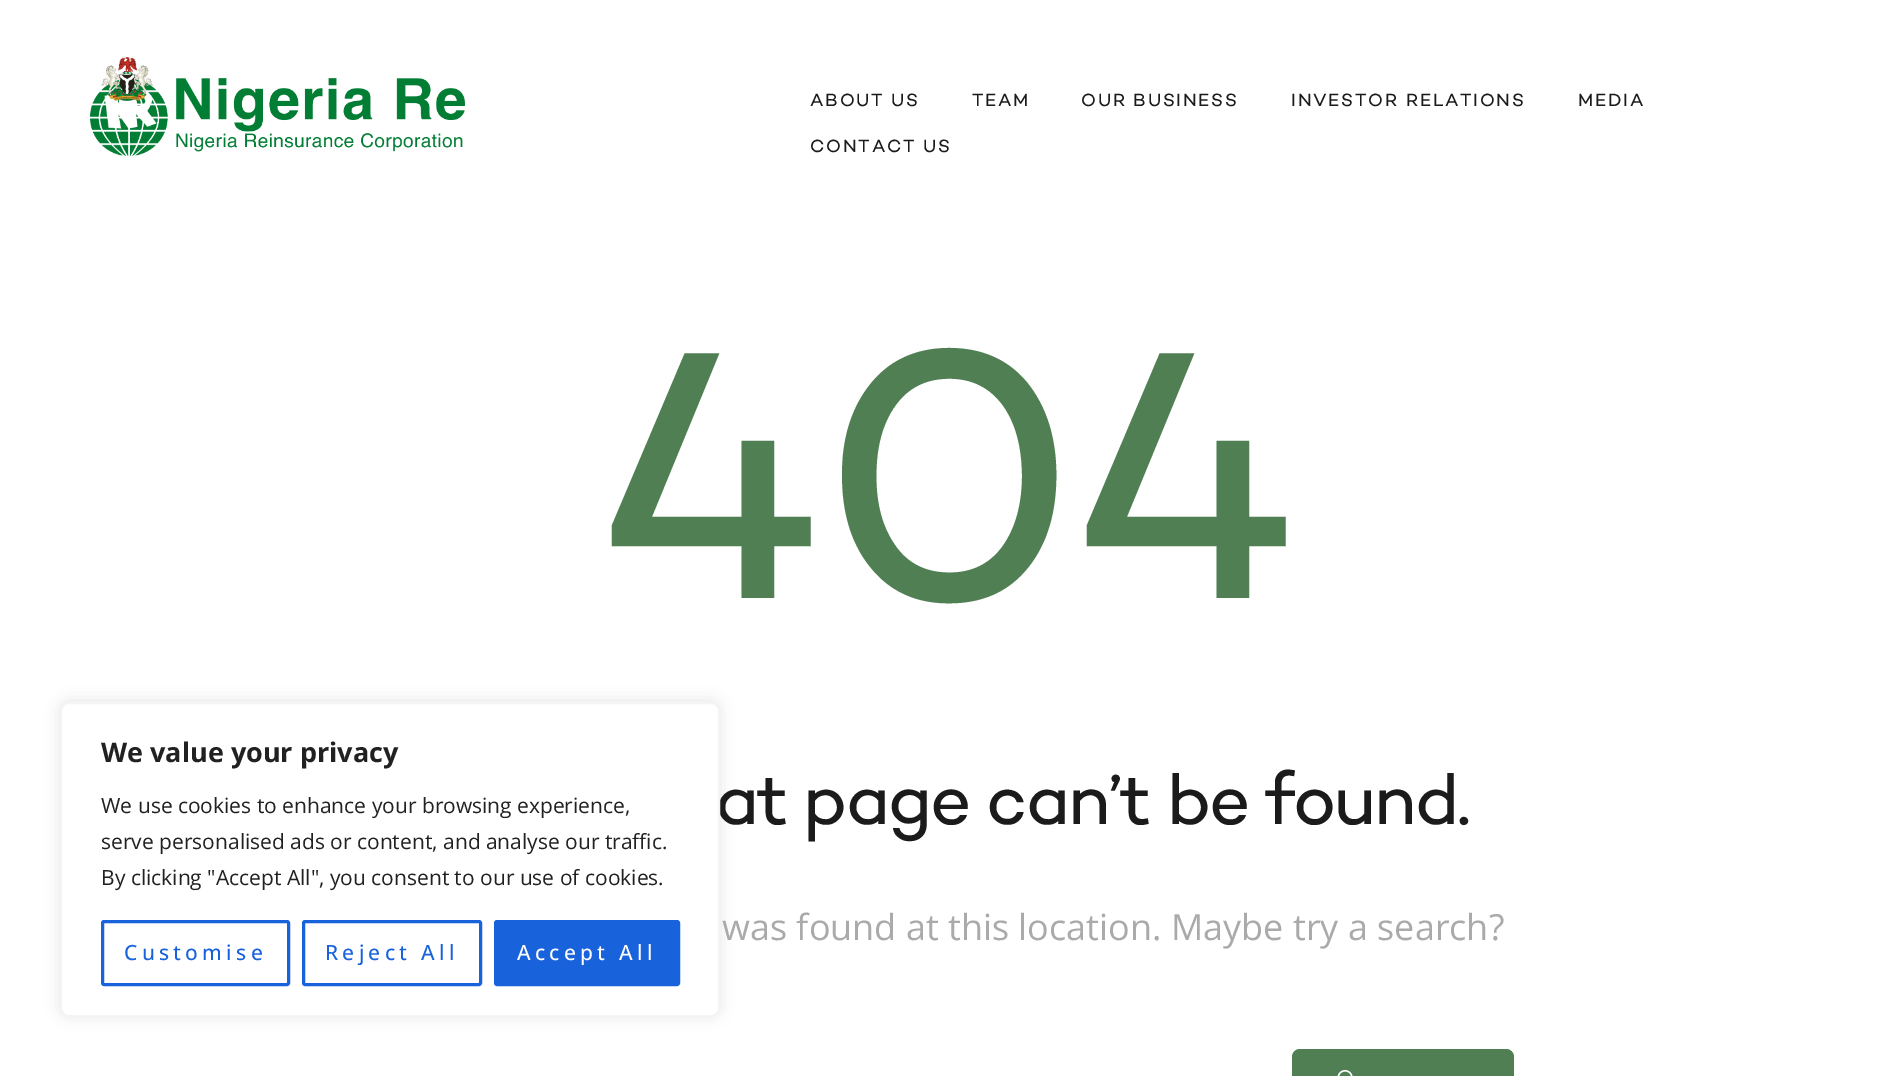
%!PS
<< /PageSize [1889 1076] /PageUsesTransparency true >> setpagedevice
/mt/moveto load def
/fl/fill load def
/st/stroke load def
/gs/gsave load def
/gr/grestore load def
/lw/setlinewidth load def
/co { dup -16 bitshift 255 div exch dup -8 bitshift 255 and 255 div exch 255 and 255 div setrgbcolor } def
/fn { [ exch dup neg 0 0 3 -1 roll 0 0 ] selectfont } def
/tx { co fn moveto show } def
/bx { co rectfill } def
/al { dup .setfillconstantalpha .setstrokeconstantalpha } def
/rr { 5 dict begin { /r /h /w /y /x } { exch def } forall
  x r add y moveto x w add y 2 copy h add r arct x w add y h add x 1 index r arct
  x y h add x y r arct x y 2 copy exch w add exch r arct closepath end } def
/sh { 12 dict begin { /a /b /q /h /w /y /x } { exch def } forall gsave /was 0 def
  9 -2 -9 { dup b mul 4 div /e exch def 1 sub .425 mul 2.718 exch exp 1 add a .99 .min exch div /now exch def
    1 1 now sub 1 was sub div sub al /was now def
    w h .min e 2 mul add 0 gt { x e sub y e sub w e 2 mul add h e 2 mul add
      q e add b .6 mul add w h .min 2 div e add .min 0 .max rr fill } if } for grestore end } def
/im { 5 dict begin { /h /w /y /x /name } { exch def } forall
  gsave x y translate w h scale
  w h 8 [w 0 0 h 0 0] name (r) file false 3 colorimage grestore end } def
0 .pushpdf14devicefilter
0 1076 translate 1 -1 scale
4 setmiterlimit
0 0 1889 1076 16#FFFFFF bx
16#ACABAB co
60 701 660 315 9 7.5 .3 sh
(media/1.raw) 90 57 375 99 im
16#517F54 co
1292 1049 222 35 8 rr fl
(media/2.raw) 1337 1069 16 7 im
/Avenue-Regular 18 fn
16#1B1B1B co
810 106 mt 1.75 0 (ABOUT US) ashow
972 106 mt 1.75 0 (TEAM) ashow
1081 106 mt 1.75 0 (OUR BUSINESS) ashow
1291 106 mt 1.75 0 (INVESTOR RELATIONS) ashow
1578 106 mt 1.75 0 (MEDIA) ashow
810 152 mt 1.75 0 (CONTACT US) ashow
/Avenue-Regular 360 fn
16#517F54 co
596 598 mt -7 0 (404) ashow
/Avenue-Regular 72 fn
16#1B1B1B co
715 824 mt -2.2 0 (at page can’t be found.) ashow
16#FFFFFF co
61 703 658 313 8 rr gs fl gr
16#F4F4F4 co
2 lw
st
16#1863DC co
495.5 921.5 183 63 1.5 rr gs fl gr
3 lw
st
/OpenSans-Medium 21 fn
16#FFFFFF co
517 960 mt 4.25 0 (Accept All) ashow
16#1863DC co
303.5 921.5 177 63 1.5 rr st
325 960 mt 4.25 0 (Reject All) ashow
102.5 921.5 186 63 1.5 rr st
124 960 mt 4.25 0 (Customise) ashow
(By clicking "Accept All", you consent to our use of cookies.) 101 885 /OpenSans-Regular 21 16#212121 tx
(serve personalised ads or content, and analyse our traffic.) 101 849 /OpenSans-Regular 21 16#212121 tx
(We use cookies to enhance your browsing experience,) 101 813 /OpenSans-Regular 21 16#212121 tx
(We value your privacy) 101 762 /OpenSans-Bold 27 16#212121 tx
(was found at this location. Maybe try a search?) 722 940 /OpenSans-Regular 36 16#AAAAAA tx
.poppdf14devicefilter showpage
